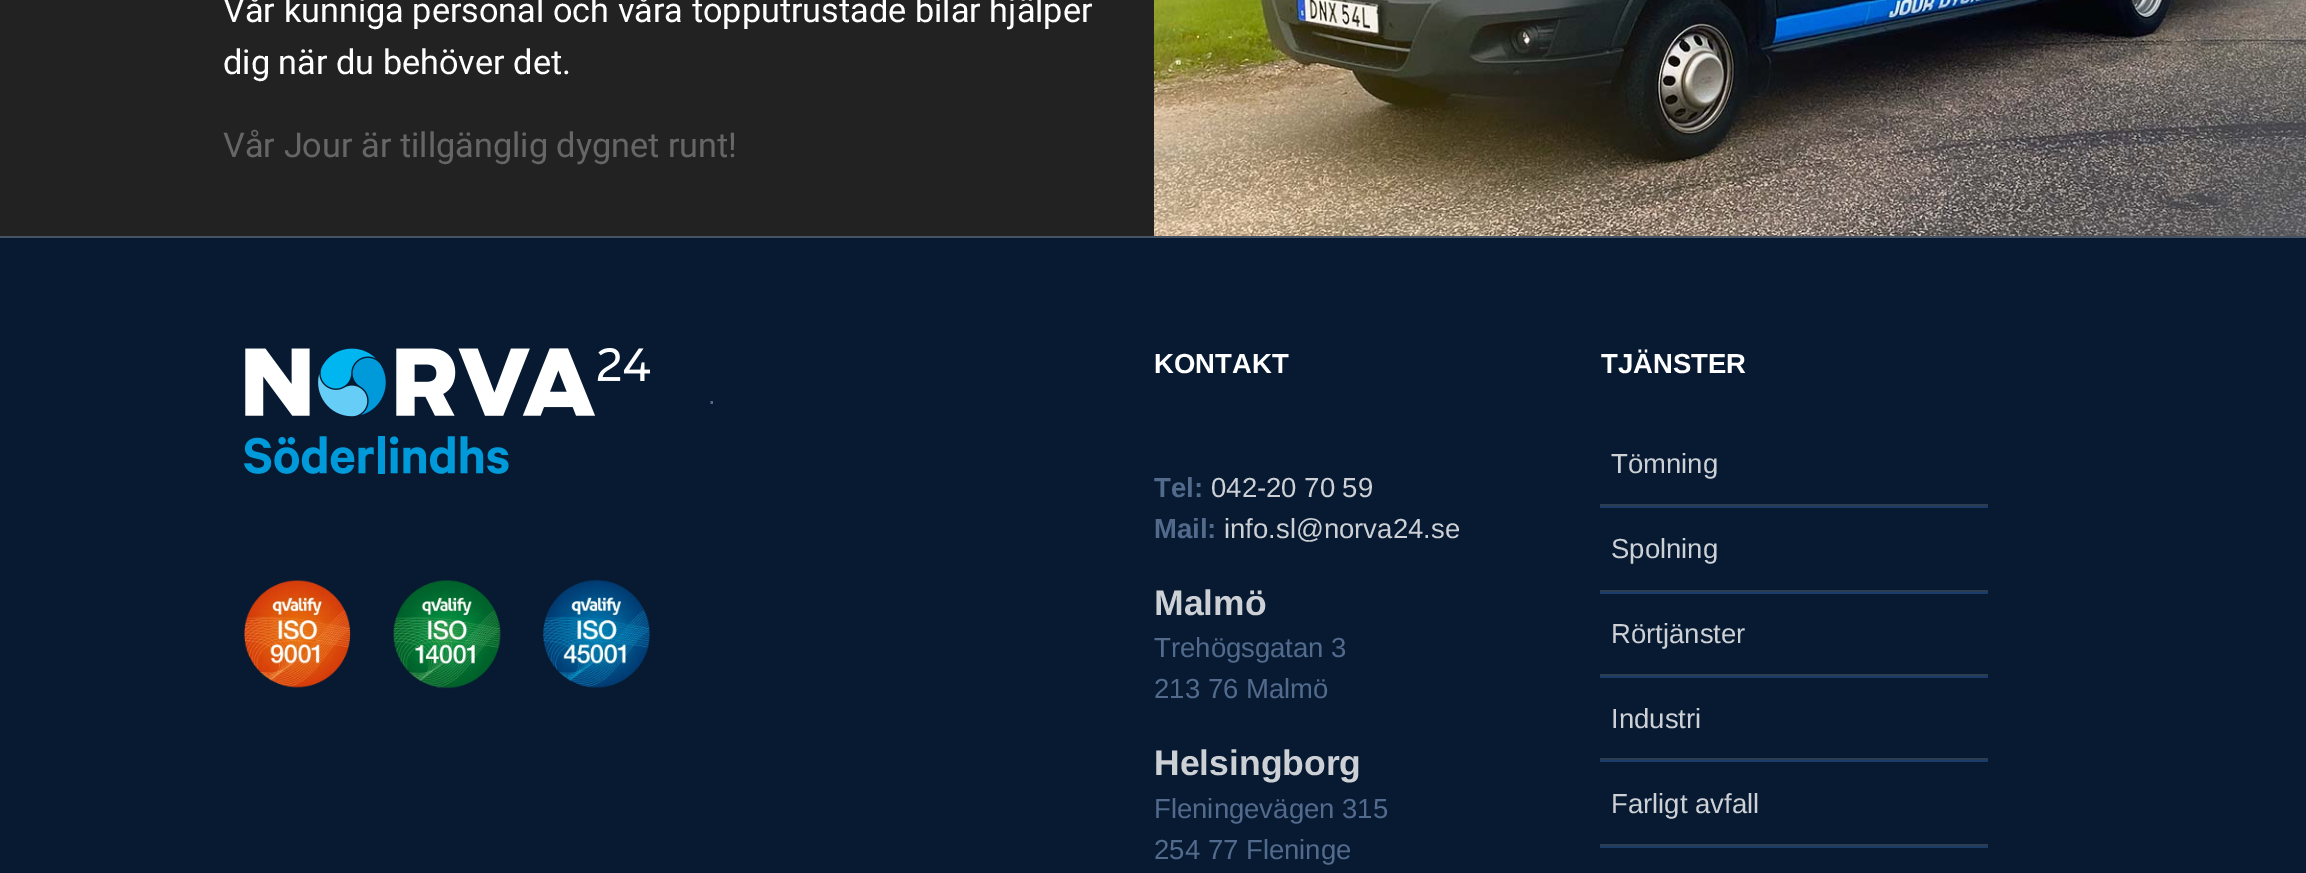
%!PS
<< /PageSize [2306 873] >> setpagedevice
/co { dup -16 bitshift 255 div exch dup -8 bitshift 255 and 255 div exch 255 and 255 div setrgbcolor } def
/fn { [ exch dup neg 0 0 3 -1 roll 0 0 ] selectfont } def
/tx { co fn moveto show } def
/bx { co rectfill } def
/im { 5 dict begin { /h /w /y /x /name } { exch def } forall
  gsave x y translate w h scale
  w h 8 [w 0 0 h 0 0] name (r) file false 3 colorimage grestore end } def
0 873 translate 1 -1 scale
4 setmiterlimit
0 0 2306 873 16#071A32 bx
0 0 1154 236 16#222222 bx
(media/1.raw) 1154 0 1152 236 im
0 236 2306 2 16#455365 bx
(media/2.raw) 244 348 406 126 im
(media/3.raw) 244 579 406 110 im
1600 506 388 2 16#1B3C69 bx
1600 504 388 2 16#2C3C51 bx
1600 592 388 2 16#1B3C69 bx
1600 590 388 2 16#2C3C51 bx
1600 676 388 2 16#1B3C69 bx
1600 674 388 2 16#2C3C51 bx
1600 760 388 2 16#1B3C69 bx
1600 758 388 2 16#2C3C51 bx
1600 846 388 2 16#1B3C69 bx
1600 844 388 2 16#2C3C51 bx
(Vår kunniga personal och våra topputrustade bilar hjälper) 223 22 /Roboto-Regular 34.25 16#FFFFFF tx
(dig när du behöver det.) 223 74 /Roboto-Regular 34.25 16#FFFFFF tx
(Vår Jour är tillgänglig dygnet runt!) 223 157 /Roboto-Regular 34.25 16#666666 tx
(.) 708 404 /LiberationSans-Regular 27.5 16#526B8D tx
(KONTAKT) 1154 373 /LiberationSans-Bold 27.5 16#FFFFFF tx
(Tel:) 1154 497 /LiberationSans-Bold 27.5 16#526B8D tx
(042-20 70 59) 1211 497 /LiberationSans-Regular 27.5 16#CDD1D6 tx
(Mail:) 1154 538 /LiberationSans-Bold 27.5 16#526B8D tx
(info.sl@norva24.se) 1224 538 /LiberationSans-Regular 27.5 16#CDD1D6 tx
(Malmö) 1154 615 /LiberationSans-Bold 35.5 16#CDD1D6 tx
(Trehögsgatan 3) 1154 657 /LiberationSans-Regular 27.5 16#526B8D tx
(213 76 Malmö) 1154 698 /LiberationSans-Regular 27.5 16#526B8D tx
(Helsingborg) 1154 775 /LiberationSans-Bold 35.5 16#CDD1D6 tx
(Fleningevägen 315) 1154 818 /LiberationSans-Regular 27.5 16#526B8D tx
(254 77 Fleninge) 1154 859 /LiberationSans-Regular 27.5 16#526B8D tx
(TJÄNSTER) 1601 373 /LiberationSans-Bold 27.5 16#FFFFFF tx
(Tömning) 1611 473 /LiberationSans-Regular 27.5 16#CDD1D6 tx
(Spolning) 1611 558 /LiberationSans-Regular 27.5 16#CDD1D6 tx
(Rörtjänster) 1611 643 /LiberationSans-Regular 27.5 16#CDD1D6 tx
(Industri) 1611 728 /LiberationSans-Regular 27.5 16#CDD1D6 tx
(Farligt avfall) 1611 813 /LiberationSans-Regular 27.5 16#CDD1D6 tx
showpage
